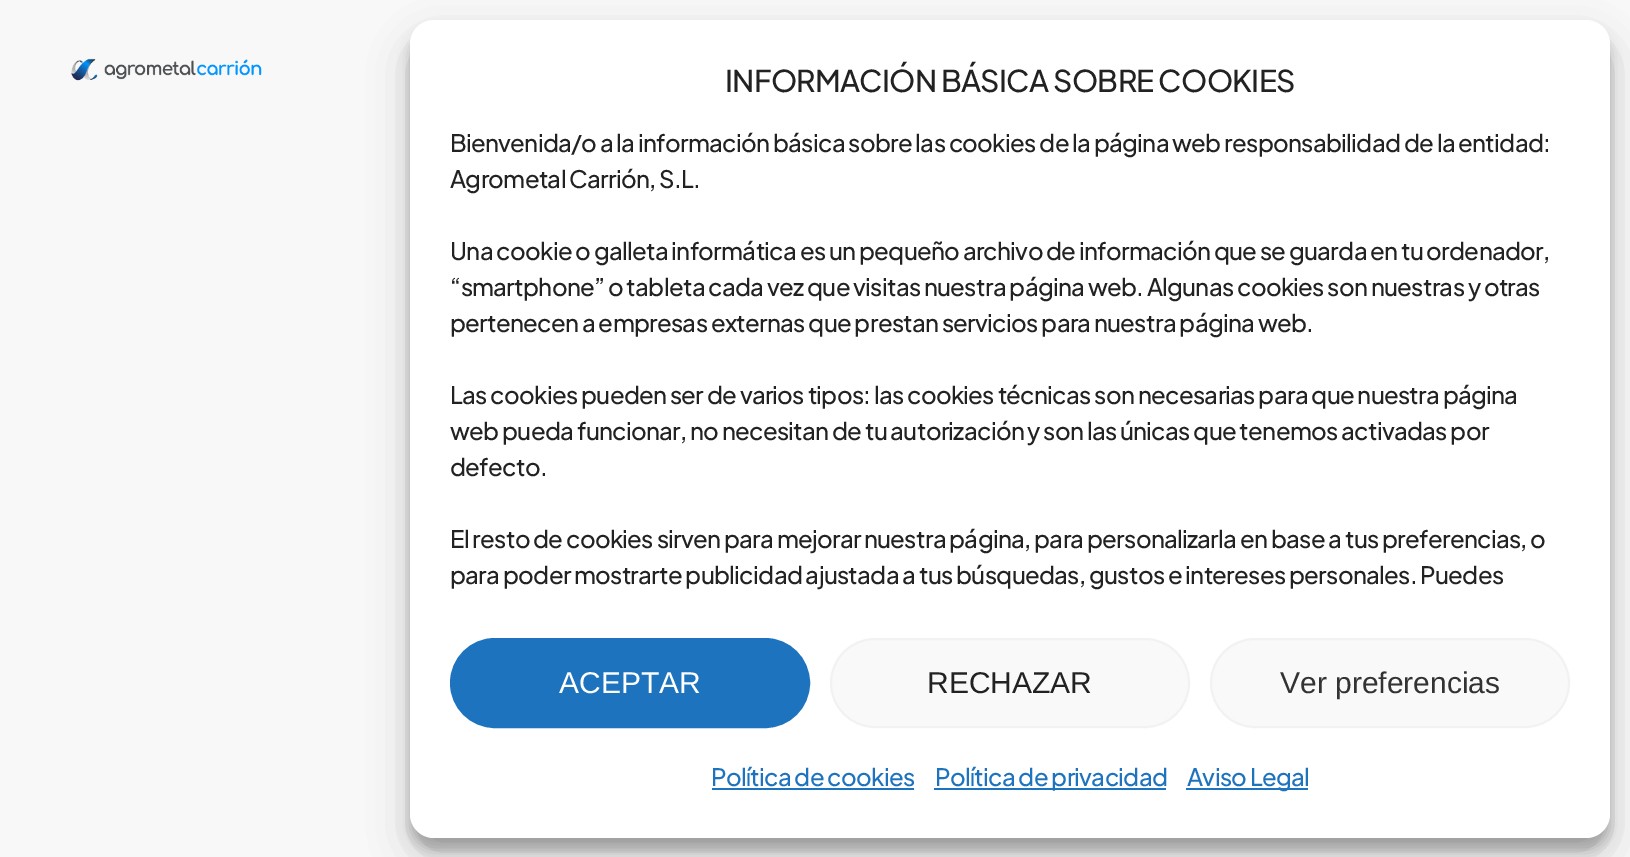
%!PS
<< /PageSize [1630 857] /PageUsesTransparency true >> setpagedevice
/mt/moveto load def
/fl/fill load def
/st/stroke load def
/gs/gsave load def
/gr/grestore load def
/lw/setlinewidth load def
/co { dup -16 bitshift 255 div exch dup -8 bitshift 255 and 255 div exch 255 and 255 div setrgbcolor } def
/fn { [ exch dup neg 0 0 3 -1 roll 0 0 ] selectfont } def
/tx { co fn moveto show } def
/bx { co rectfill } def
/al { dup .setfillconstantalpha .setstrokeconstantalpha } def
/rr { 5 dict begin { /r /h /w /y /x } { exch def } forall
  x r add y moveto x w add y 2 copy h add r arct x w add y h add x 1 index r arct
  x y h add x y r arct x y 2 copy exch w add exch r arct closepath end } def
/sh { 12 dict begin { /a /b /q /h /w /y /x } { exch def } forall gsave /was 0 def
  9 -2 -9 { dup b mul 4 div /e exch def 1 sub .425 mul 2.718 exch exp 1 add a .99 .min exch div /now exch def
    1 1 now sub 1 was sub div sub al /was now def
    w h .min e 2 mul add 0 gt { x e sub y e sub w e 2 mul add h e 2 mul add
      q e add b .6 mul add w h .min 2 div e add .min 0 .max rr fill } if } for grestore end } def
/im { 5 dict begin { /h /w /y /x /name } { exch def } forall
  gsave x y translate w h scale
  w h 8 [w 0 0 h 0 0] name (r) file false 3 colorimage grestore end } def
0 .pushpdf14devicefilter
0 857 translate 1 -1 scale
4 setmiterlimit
0 0 1630 857 16#F8F8F8 bx
(media/1.raw) 71 58 191 23 im
16#000000 co
410 32 1200 818 24 6 .23 sh
410 40 1200 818 24 20 .19 sh
16#FFFFFF co
410 20 1200 818 24 rr fl
16#1E73BE co
451 639 358 88 44 rr gs fl gr
2 lw
st
16#F9F9F9 co
831 639 358 88 44 rr gs fl gr
16#F2F2F2 co
st
16#F9F9F9 co
1211 639 358 88 44 rr gs fl gr
16#F2F2F2 co
st
712 788 202 2 16#1E73BE bx
934 788 232 2 16#1E73BE bx
1186 788 122 2 16#1E73BE bx
/PlusJakartaSans-Medium 30 fn
16#222222 co
725 92 mt -.68 0 (INFORMACIÓN BÁSICA SOBRE COOKIES) ashow
/PlusJakartaSans-Medium 24 fn
450 152 mt -.68 0 (Bienvenida/o a la información básica sobre las cookies de la página web responsabilidad de la entidad:) ashow
450 188 mt -.68 0 (Agrometal Carrión, S.L.) ashow
450 260 mt -.68 0 (Una cookie o galleta informática es un pequeño archivo de información que se guarda en tu ordenador,) ashow
450 296 mt -.68 0 (“smartphone” o tableta cada vez que visitas nuestra página web. Algunas cookies son nuestras y otras) ashow
450 332 mt -.68 0 (pertenecen a empresas externas que prestan servicios para nuestra página web.) ashow
450 404 mt -.68 0 (Las cookies pueden ser de varios tipos: las cookies técnicas son necesarias para que nuestra página) ashow
450 440 mt -.68 0 (web pueda funcionar, no necesitan de tu autorización y son las únicas que tenemos activadas por) ashow
450 476 mt -.68 0 (defecto.) ashow
450 548 mt -.68 0 (El resto de cookies sirven para mejorar nuestra página, para personalizarla en base a tus preferencias, o) ashow
450 584 mt -.68 0 (para poder mostrarte publicidad ajustada a tus búsquedas, gustos e intereses personales. Puedes) ashow
(ACEPTAR) 559 693 /LiberationSans-Regular 30 16#FFFFFF tx
(RECHAZAR) 927 693 /LiberationSans-Regular 30 16#222222 tx
(Ver preferencias) 1280 693 /LiberationSans-Regular 30 16#333333 tx
/PlusJakartaSans-Medium 24 fn
16#1E73BE co
711 786 mt -.68 0 (Política de cookies) ashow
935 786 mt -.68 0 (Política de privacidad) ashow
1187 786 mt -.68 0 (Aviso Legal) ashow
.poppdf14devicefilter showpage
